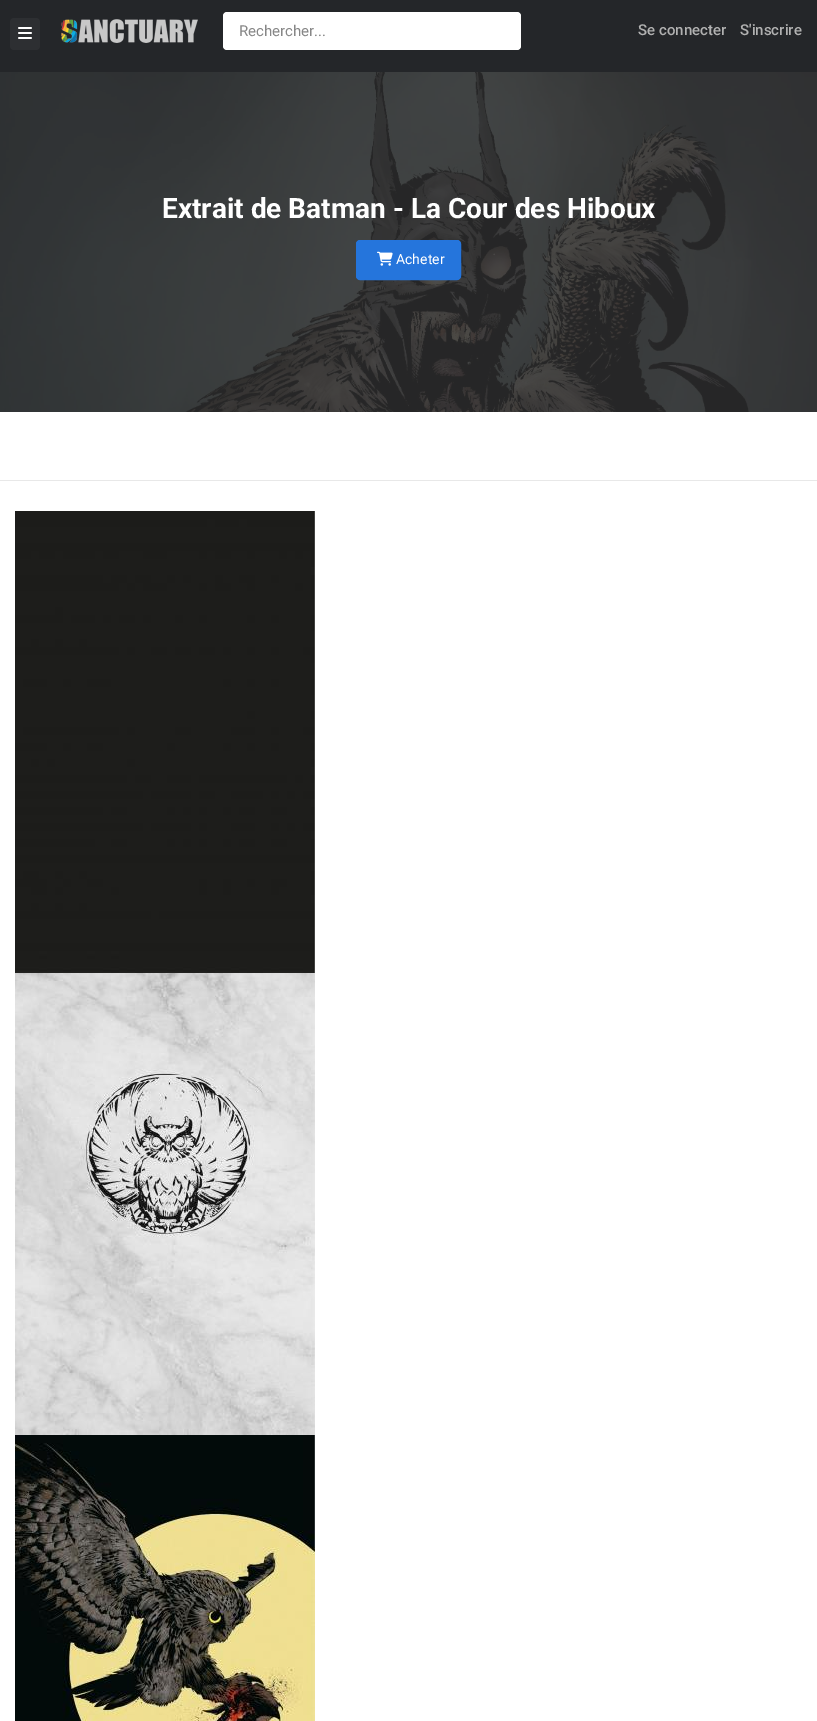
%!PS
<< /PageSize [817 1721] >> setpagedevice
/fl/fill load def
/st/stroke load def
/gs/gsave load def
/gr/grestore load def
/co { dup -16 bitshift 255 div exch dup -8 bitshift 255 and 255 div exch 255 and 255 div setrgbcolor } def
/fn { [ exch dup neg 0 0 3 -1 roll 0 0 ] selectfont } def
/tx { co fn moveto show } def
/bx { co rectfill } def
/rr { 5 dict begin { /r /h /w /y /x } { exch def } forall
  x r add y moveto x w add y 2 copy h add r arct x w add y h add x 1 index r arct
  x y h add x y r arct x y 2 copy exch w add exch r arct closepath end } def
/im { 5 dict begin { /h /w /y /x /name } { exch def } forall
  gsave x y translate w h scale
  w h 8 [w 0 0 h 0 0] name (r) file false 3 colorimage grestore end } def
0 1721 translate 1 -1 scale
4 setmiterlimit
0 0 817 1721 16#FFFFFF bx
0 0 817 72 16#242629 bx
16#2D2F32 co
10 18 30 32 4 rr fl
(media/1.raw) 18 27 14 12 im
(media/2.raw) 61 19 137 24 im
16#FFFFFF co
223 12 298 38 4 rr fl
(media/3.raw) 0 72 817 340 im
16#2575DC co
356.5 240.5 104 39 3.5 rr gs fl gr
st
(media/4.raw) 377 251 16 15 im
0 480 817 1 16#E8E8E8 bx
(media/5.raw) 15 511 300 462 im
(media/6.raw) 15 973 300 462 im
(media/7.raw) 15 1435 300 286 im
(Rechercher...) 239 36 /Roboto-Regular 15 16#878787 tx
(Se connecter) 638 35 /Roboto-Medium 15 16#B1B1B1 tx
(S'inscrire) 740 35 /Roboto-Medium 15 16#B1B1B1 tx
(Extrait de Batman - La Cour des Hiboux) 162 218 /Roboto-Bold 28 16#FFFFFF tx
(Acheter) 396 264 /Roboto-Regular 14 16#FFFFFF tx
showpage
